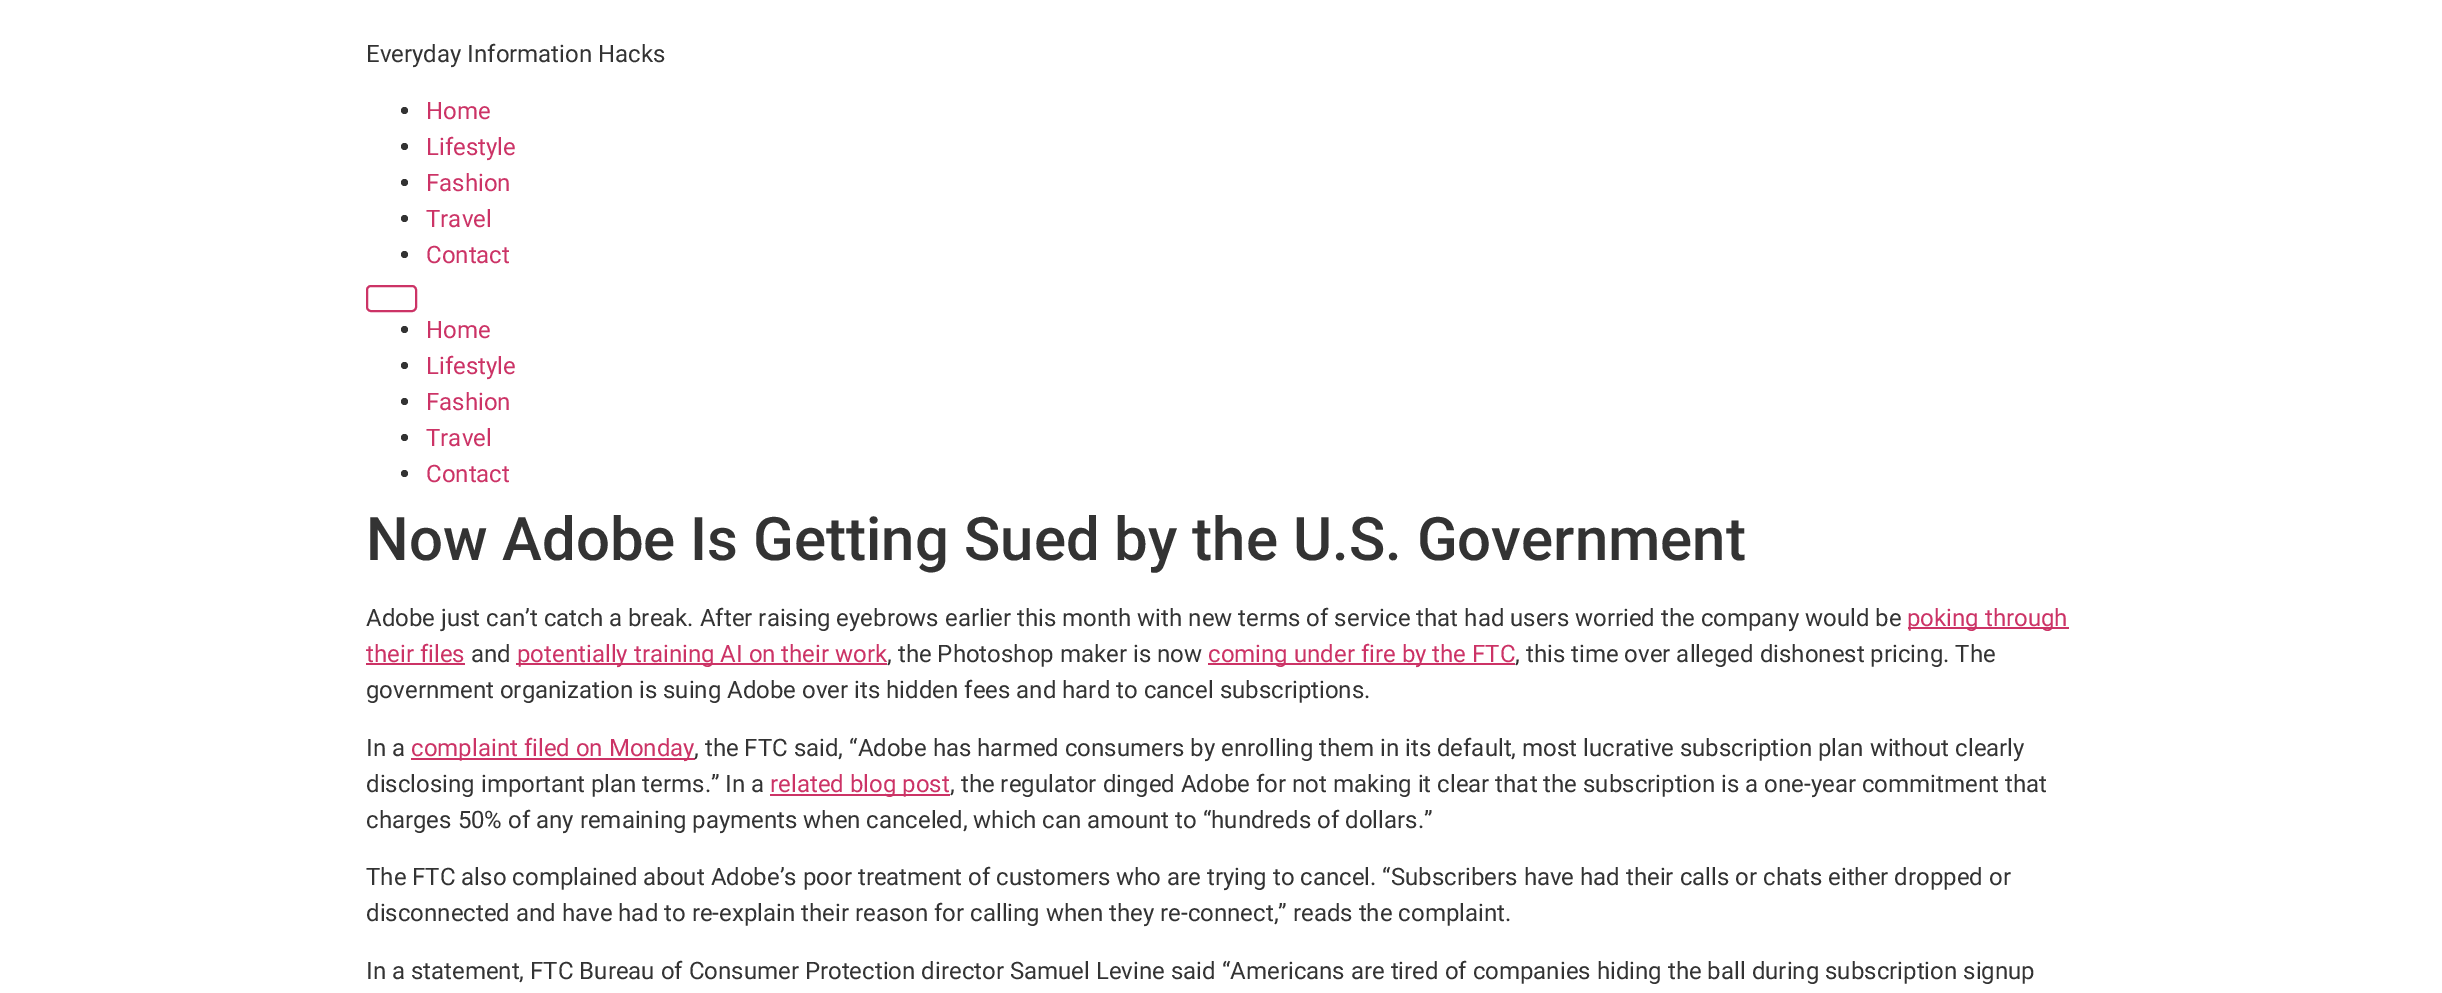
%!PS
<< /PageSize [2442 993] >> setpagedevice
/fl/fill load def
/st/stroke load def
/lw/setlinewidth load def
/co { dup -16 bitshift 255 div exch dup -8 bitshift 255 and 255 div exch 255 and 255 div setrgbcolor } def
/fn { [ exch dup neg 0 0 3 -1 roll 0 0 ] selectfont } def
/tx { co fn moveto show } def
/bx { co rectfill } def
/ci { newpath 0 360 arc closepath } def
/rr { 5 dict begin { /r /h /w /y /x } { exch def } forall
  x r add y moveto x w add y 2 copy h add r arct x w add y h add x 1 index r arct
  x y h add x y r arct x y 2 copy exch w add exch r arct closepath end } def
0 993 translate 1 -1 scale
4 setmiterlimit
0 0 2442 993 16#FFFFFF bx
16#333333 co
404.5 110.5 3.5 ci fl
404.5 146.5 3.5 ci fl
404.5 182.5 3.5 ci fl
404.5 218.5 3.5 ci fl
404.5 254.5 3.5 ci fl
16#CC3366 co
2 lw
367 286 49 25 4 rr st
16#333333 co
404.5 329.5 3.5 ci fl
404.5 365.5 3.5 ci fl
404.5 401.5 3.5 ci fl
404.5 437.5 3.5 ci fl
404.5 473.5 3.5 ci fl
1908 627 161 2 16#CC3366 bx
366 663 99 2 16#CC3366 bx
516 663 371 2 16#CC3366 bx
1208 663 307 2 16#CC3366 bx
411 758 284 2 16#CC3366 bx
770 794 180 2 16#CC3366 bx
(Everyday Information Hacks) 366 62 /Roboto-Regular 24 16#333333 tx
(Home) 426 119 /Roboto-Regular 24 16#CC3366 tx
(Lifestyle) 426 155 /Roboto-Regular 24 16#CC3366 tx
(Fashion) 426 191 /Roboto-Regular 24 16#CC3366 tx
(Travel) 426 227 /Roboto-Regular 24 16#CC3366 tx
(Contact) 426 263 /Roboto-Regular 24 16#CC3366 tx
(Home) 426 338 /Roboto-Regular 24 16#CC3366 tx
(Lifestyle) 426 374 /Roboto-Regular 24 16#CC3366 tx
(Fashion) 426 410 /Roboto-Regular 24 16#CC3366 tx
(Travel) 426 446 /Roboto-Regular 24 16#CC3366 tx
(Contact) 426 482 /Roboto-Regular 24 16#CC3366 tx
(Now Adobe Is Getting Sued by the U.S. Government) 366 560 /Roboto-Medium 60 16#333333 tx
(Adobe just can’t catch a break. After raising eyebrows earlier this month with new terms of service that had users worried the company would be) 366 626 /Roboto-Regular 24 16#333333 tx
(poking through) 1907 626 /Roboto-Regular 24 16#CC3366 tx
(their files) 366 662 /Roboto-Regular 24 16#CC3366 tx
(and) 471 662 /Roboto-Regular 24 16#333333 tx
(potentially training AI on their work) 517 662 /Roboto-Regular 24 16#CC3366 tx
(, the Photoshop maker is now) 887 662 /Roboto-Regular 24 16#333333 tx
(coming under fire by the FTC) 1208 662 /Roboto-Regular 24 16#CC3366 tx
(, this time over alleged dishonest pricing. The) 1515 662 /Roboto-Regular 24 16#333333 tx
(government organization is suing Adobe over its hidden fees and hard to cancel subscriptions.) 366 698 /Roboto-Regular 24 16#333333 tx
(In a) 366 756 /Roboto-Regular 24 16#333333 tx
(complaint filed on Monday) 411 756 /Roboto-Regular 24 16#CC3366 tx
(, the FTC said, “Adobe has harmed consumers by enrolling them in its default, most lucrative subscription plan without clearly) 694 756 /Roboto-Regular 24 16#333333 tx
(disclosing important plan terms.” In a) 366 792 /Roboto-Regular 24 16#333333 tx
(related blog post) 770 792 /Roboto-Regular 24 16#CC3366 tx
(, the regulator dinged Adobe for not making it clear that the subscription is a one-year commitment that) 950 792 /Roboto-Regular 24 16#333333 tx
(charges 50% of any remaining payments when canceled, which can amount to “hundreds of dollars.”) 366 828 /Roboto-Regular 24 16#333333 tx
(The FTC also complained about Adobe’s poor treatment of customers who are trying to cancel. “Subscribers have had their calls or chats either dropped or) 366 885 /Roboto-Regular 24 16#333333 tx
(disconnected and have had to re-explain their reason for calling when they re-connect,” reads the complaint.) 366 921 /Roboto-Regular 24 16#333333 tx
(In a statement, FTC Bureau of Consumer Protection director Samuel Levine said “Americans are tired of companies hiding the ball during subscription signup) 366 979 /Roboto-Regular 24 16#333333 tx
showpage
